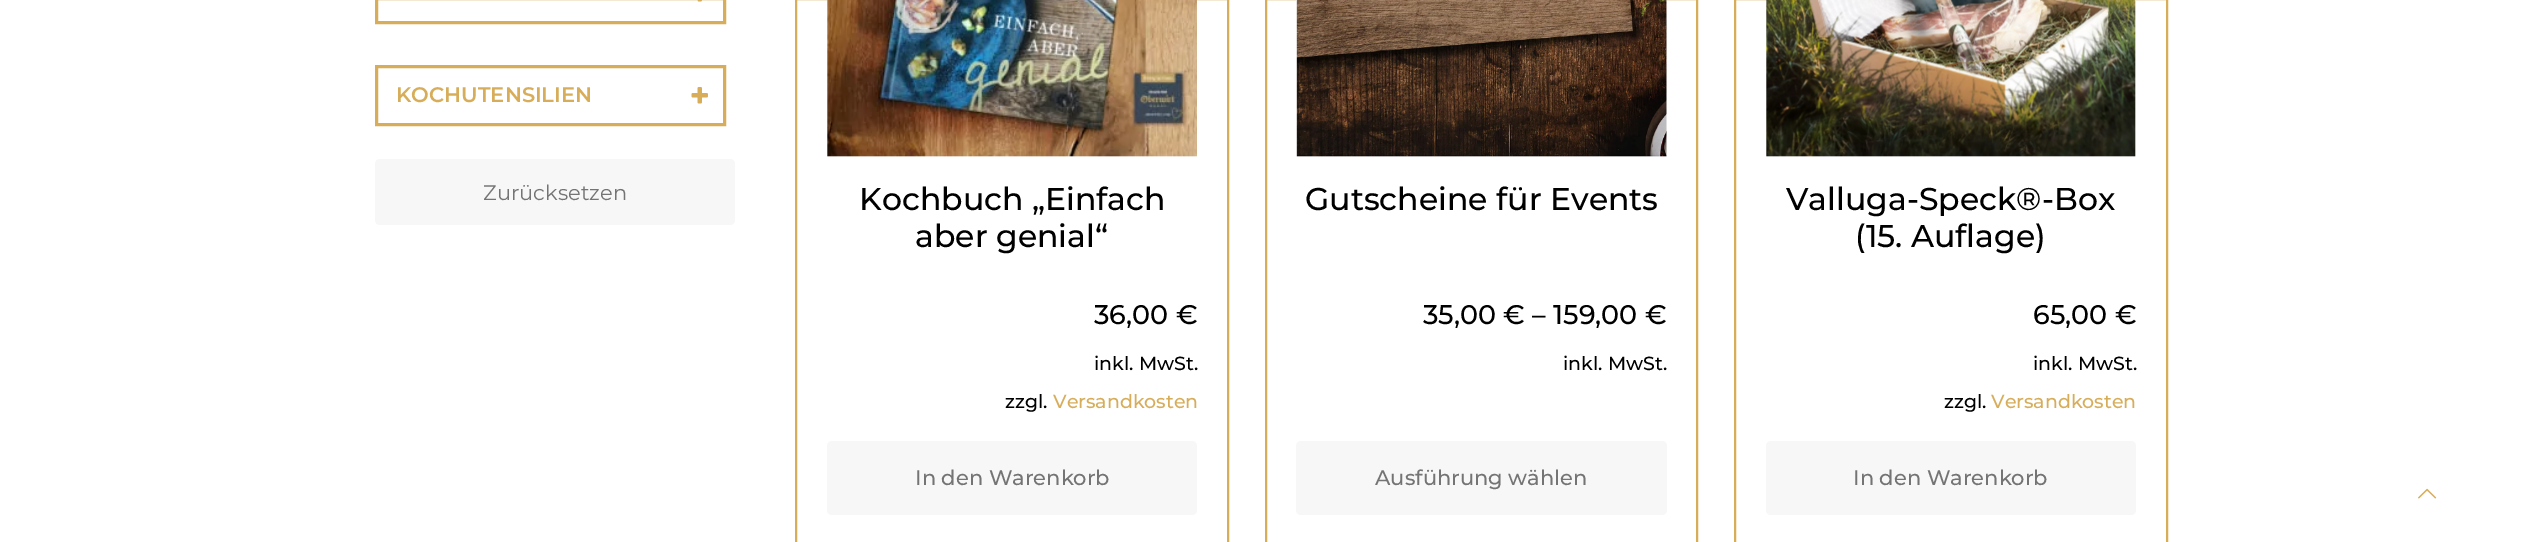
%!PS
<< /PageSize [2535 542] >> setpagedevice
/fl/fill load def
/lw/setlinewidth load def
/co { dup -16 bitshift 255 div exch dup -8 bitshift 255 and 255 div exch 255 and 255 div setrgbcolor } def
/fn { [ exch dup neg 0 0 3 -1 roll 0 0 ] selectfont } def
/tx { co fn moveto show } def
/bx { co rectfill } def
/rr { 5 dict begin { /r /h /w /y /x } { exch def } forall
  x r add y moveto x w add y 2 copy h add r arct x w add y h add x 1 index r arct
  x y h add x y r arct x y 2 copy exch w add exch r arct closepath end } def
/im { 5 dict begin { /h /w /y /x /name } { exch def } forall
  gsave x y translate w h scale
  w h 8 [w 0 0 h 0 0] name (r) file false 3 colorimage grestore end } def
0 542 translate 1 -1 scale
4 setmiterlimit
0 0 2535 542 16#FFFFFF bx
16#D7AD59 co
3 lw
376.5 -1.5 348 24 rectstroke
(media/1.raw) 697 0 5 2 im
376.5 66.5 348 58 rectstroke
(media/2.raw) 691 87 17 17 im
16#F7F7F7 co
375 159 360 66 5 rr fl
16#D7AD59 co
2 lw
796 -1 432 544 rectstroke
(media/3.raw) 827 0 370 157 im
16#F7F7F7 co
827 441 370 74 5 rr fl
16#D7AD59 co
1266 -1 431 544 rectstroke
(media/4.raw) 1296 0 371 157 im
16#F7F7F7 co
1296 441 371 74 5 rr fl
16#D7AD59 co
1735 -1 432 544 rectstroke
(media/5.raw) 1766 0 370 157 im
16#F7F7F7 co
1766 441 370 74 5 rr fl
(media/6.raw) 2418 488 19 11 im
(KOCHUTENSILIEN) 396 102 /Montserrat-Thin 21 16#D7AD59 tx
(Zurücksetzen) 483 200 /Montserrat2-Thin 21 16#747474 tx
(Kochbuch „Einfach) 859 210 /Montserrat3-Thin 31.5 16#000000 tx
(aber genial“) 915 247 /Montserrat3-Thin 31.5 16#000000 tx
(36,00 €) 1094 324 /Montserrat3-Thin 27 16#000000 tx
(inkl. MwSt.) 1094 370 /Montserrat3-Thin 19 16#000000 tx
(zzgl.) 1005 408 /Montserrat3-Thin 19 16#000000 tx
(Versandkosten) 1053 408 /Montserrat3-Thin 19 16#D7AD59 tx
(In den Warenkorb) 915 485 /Montserrat3-Thin 21 16#747474 tx
(Gutscheine für Events) 1305 210 /Montserrat3-Thin 31.5 16#000000 tx
(35,00 € – 159,00 €) 1423 324 /Montserrat3-Thin 27 16#000000 tx
(inkl. MwSt.) 1563 370 /Montserrat3-Thin 19 16#000000 tx
(Ausführung wählen) 1375 485 /Montserrat3-Thin 21 16#747474 tx
(Valluga-Speck®-Box) 1786 210 /Montserrat3-Thin 31.5 16#000000 tx
(\(15. Auflage\)) 1855 247 /Montserrat3-Thin 31.5 16#000000 tx
(65,00 €) 2033 324 /Montserrat3-Thin 27 16#000000 tx
(inkl. MwSt.) 2033 370 /Montserrat3-Thin 19 16#000000 tx
(zzgl.) 1944 408 /Montserrat3-Thin 19 16#000000 tx
(Versandkosten) 1991 408 /Montserrat3-Thin 19 16#D7AD59 tx
(In den Warenkorb) 1853 485 /Montserrat3-Thin 21 16#747474 tx
showpage
